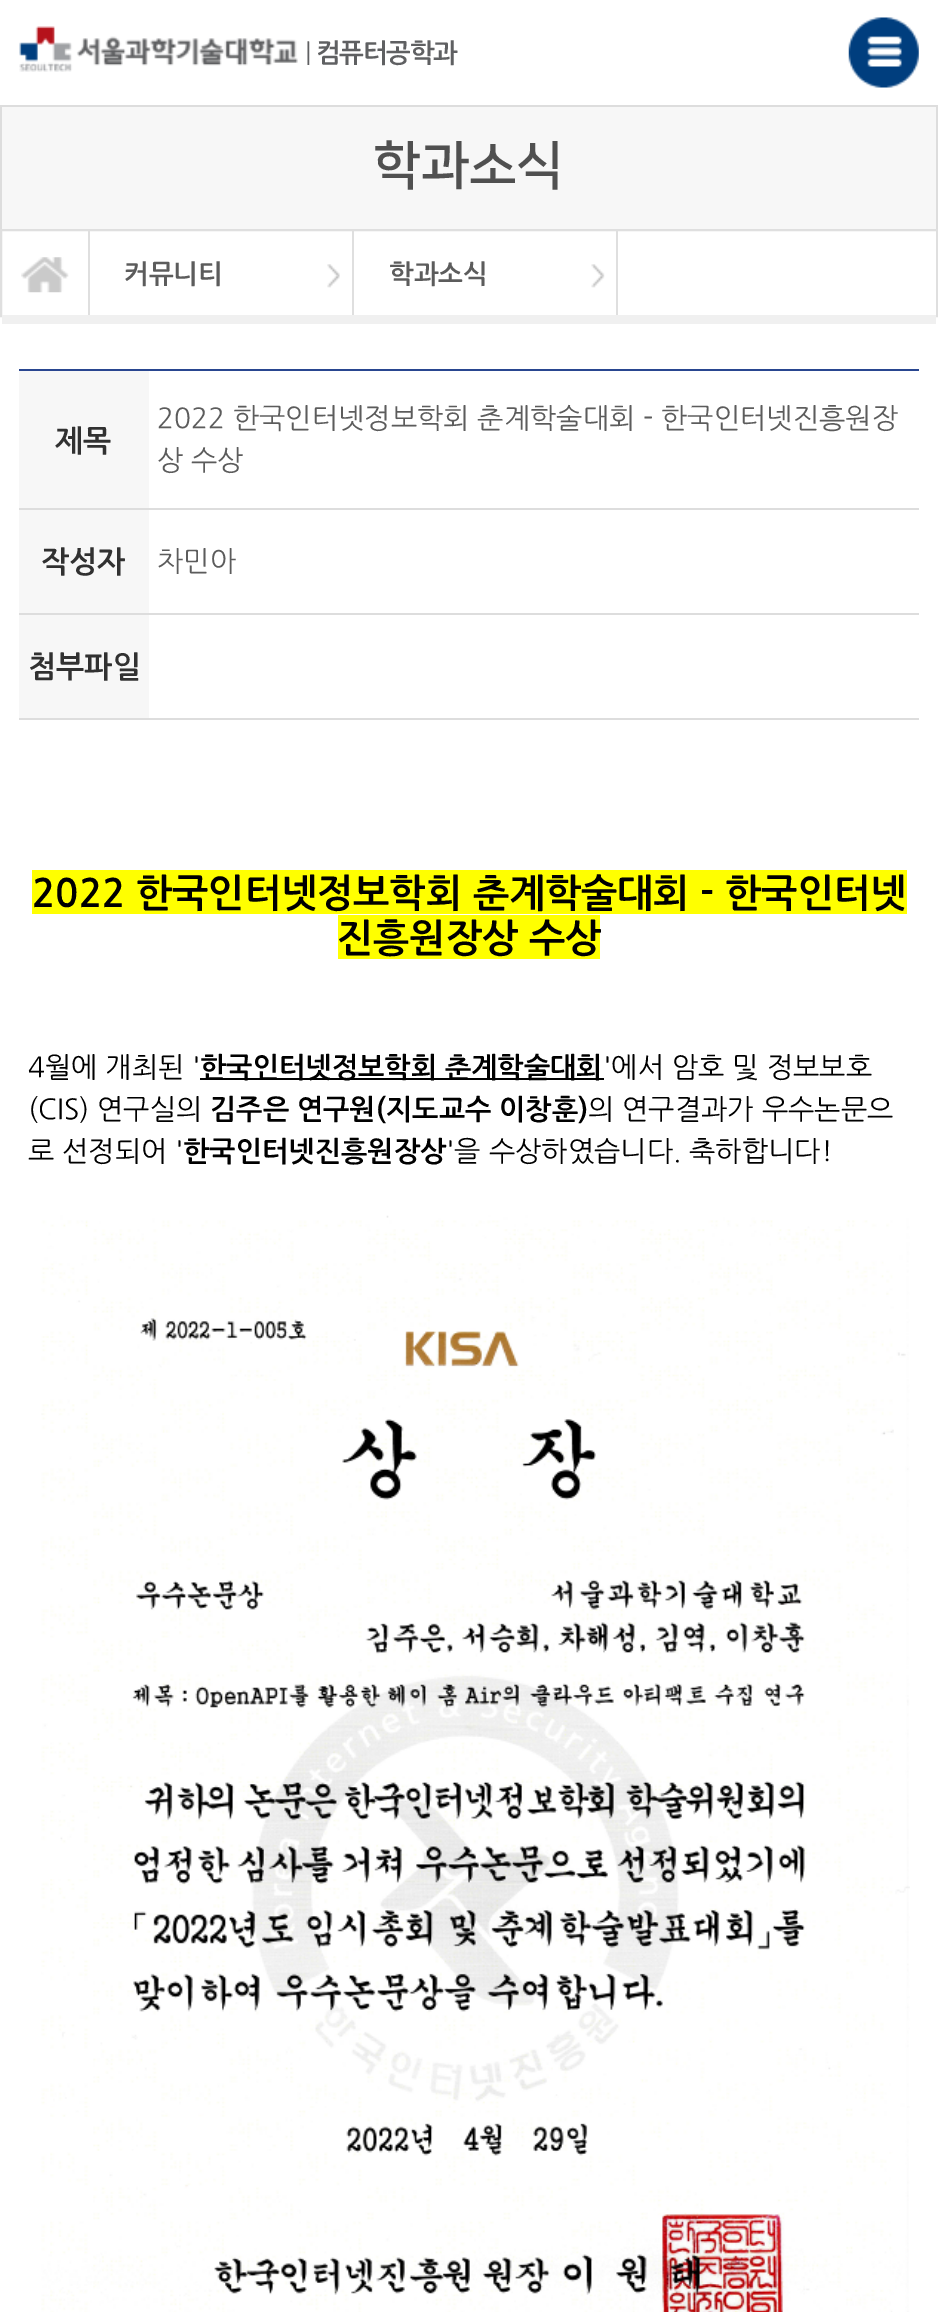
%!PS
<< /PageSize [938 2312] >> setpagedevice
/mt/moveto load def
/lw/setlinewidth load def
/co { dup -16 bitshift 255 div exch dup -8 bitshift 255 and 255 div exch 255 and 255 div setrgbcolor } def
/fn { [ exch dup neg 0 0 3 -1 roll 0 0 ] selectfont } def
/tx { co fn moveto show } def
/bx { co rectfill } def
/im { 5 dict begin { /h /w /y /x /name } { exch def } forall
  gsave x y translate w h scale
  w h 8 [w 0 0 h 0 0] name (r) file false 3 colorimage grestore end } def
0 2312 translate 1 -1 scale
4 setmiterlimit
0 0 938 2312 16#FFFFFF bx
0 105 938 2 16#DDDDDD bx
(media/1.raw) 19 26 279 46 im
(media/2.raw) 848 17 71 71 im
2 107 934 122 16#F7F7F7 bx
936 107 2 122 16#DDDDDD bx
0 107 2 122 16#DDDDDD bx
16#DFDFDF co
2 lw
1 230 936 86 rectstroke
88 231 2 84 16#DFDFDF bx
(media/3.raw) 21 257 48 36 im
(media/4.raw) 327 264 13 24 im
352 231 2 84 16#DFDFDF bx
(media/5.raw) 591 264 14 24 im
616 231 2 84 16#DFDFDF bx
2 315 934 9 16#F0F0F0 bx
19 369 900 2 16#294690 bx
19 371 130 137 16#F7F7F7 bx
19 510 130 103 16#F7F7F7 bx
19 508 900 2 16#DDDDDD bx
19 613 900 2 16#DDDDDD bx
19 615 130 103 16#F7F7F7 bx
19 718 900 2 16#DDDDDD bx
32 870 875 44 16#FFFF00 bx
338 915 262 44 16#FFFF00 bx
200 1078 404 2 16#000000 bx
(media/6.raw) 41 1215 869 1097 im
/NanumGothic-Regular 26.25 fn
16#5F6062 co
305 61 mt -1.25 0 (|) ashow
/NanumGothic-Bold 26.25 fn
316 61 mt -1.25 0 (컴퓨터공학과) ashow
(학과소식) 373 182 /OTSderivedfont-Bold 52.5 16#505050 tx
(커뮤니티) 124 282 /NanumGothic-Bold 26.25 16#5C5C5C tx
(학과소식) 389 282 /NanumGothic-Bold 26.25 16#5C5C5C tx
(제목) 55 450 /NanumGothic-Bold 30 16#313131 tx
(2022 한국인터넷정보학회 춘계학술대회 - 한국인터넷진흥원장) 157 427 /NanumGothic-Regular 28 16#5C5C5C tx
(상 수상) 157 469 /NanumGothic-Regular 28 16#5C5C5C tx
(작성자) 41 571 /NanumGothic-Bold 30 16#313131 tx
(차민아) 157 570 /NanumGothic-Regular 28 16#5C5C5C tx
(첨부파일) 28 676 /NanumGothic-Bold 30 16#313131 tx
(2022 한국인터넷정보학회 춘계학술대회 - 한국인터넷) 32 905 /NanumGothic-Bold 38.5 16#000000 tx
(진흥원장상 수상) 337 950 /NanumGothic-Bold 38.5 16#000000 tx
(4월에 개최된 ') 28 1076 /NanumGothic-Regular 28 16#000000 tx
(한국인터넷정보학회 춘계학술대회) 200 1076 /NanumGothic-Bold 28 16#000000 tx
('에서 암호 및 정보보호) 603 1076 /NanumGothic-Regular 28 16#000000 tx
(\(CIS\) 연구실의) 28 1118 /NanumGothic-Regular 28 16#000000 tx
(김주은 연구원\(지도교수 이창훈\)) 210 1118 /NanumGothic-Bold 28 16#000000 tx
(의 연구결과가 우수논문으) 588 1118 /NanumGothic-Regular 28 16#000000 tx
(로 선정되어 ') 28 1160 /NanumGothic-Regular 28 16#000000 tx
(한국인터넷진흥원장상) 183 1160 /NanumGothic-Bold 28 16#000000 tx
('을 수상하였습니다. 축하합니다!) 446 1160 /NanumGothic-Regular 28 16#000000 tx
showpage
